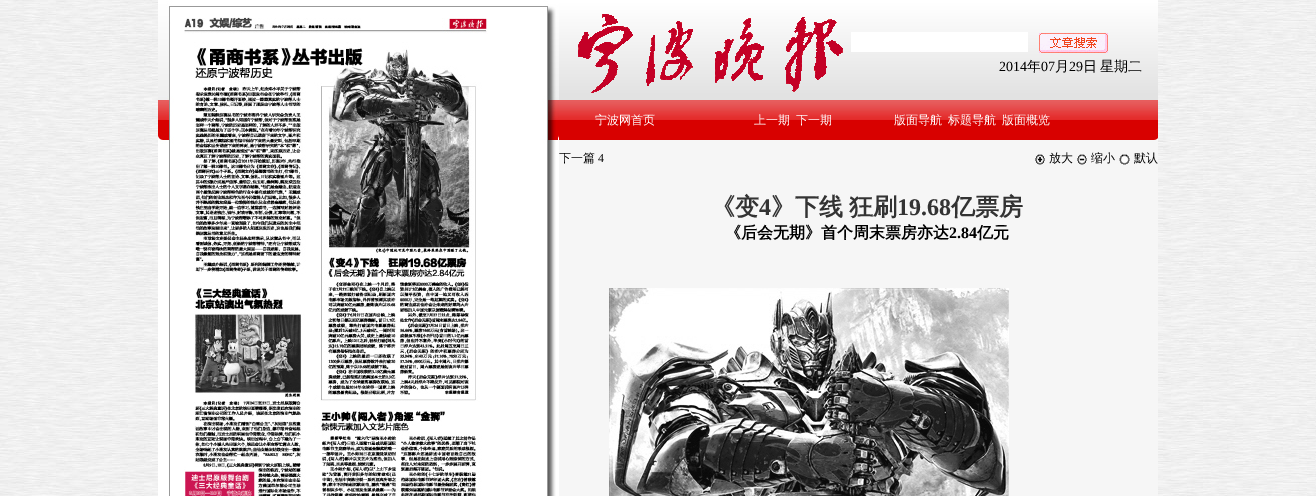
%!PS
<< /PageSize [1316 496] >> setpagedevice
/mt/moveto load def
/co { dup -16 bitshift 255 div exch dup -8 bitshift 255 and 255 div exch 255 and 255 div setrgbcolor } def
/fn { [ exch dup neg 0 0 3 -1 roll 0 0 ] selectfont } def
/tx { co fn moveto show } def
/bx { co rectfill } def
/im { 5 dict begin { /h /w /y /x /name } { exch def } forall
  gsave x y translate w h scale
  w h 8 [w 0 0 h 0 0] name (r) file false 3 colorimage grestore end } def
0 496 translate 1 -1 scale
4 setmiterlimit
0 0 1316 496 16#FFFFFF bx
(media/1.raw) 0 0 1316 496 im
559 140 599 356 16#F6F6F6 bx
(media/2.raw) 158 0 401 496 im
(media/3.raw) 184 17 304 479 im
(media/4.raw) 559 0 599 100 im
(media/5.raw) 578 14 265 79 im
851 32 177 20 16#FFFFFF bx
(media/6.raw) 1039 33 69 20 im
(media/7.raw) 559 100 599 40 im
(media/8.raw) 1035 154 10 11 im
(media/9.raw) 1077 154 10 11 im
(media/10.raw) 1119 154 11 11 im
(media/11.raw) 609 288 400 208 im
(2014) 999 71 /LiberationSerif-Regular 14 16#000000 tx
(年) 1027 71 /WenQuanYiZenHei-Medium 14 16#000000 tx
(07) 1041 71 /LiberationSerif-Regular 14 16#000000 tx
(月) 1055 71 /WenQuanYiZenHei-Medium 14 16#000000 tx
(29) 1069 71 /LiberationSerif-Regular 14 16#000000 tx
/WenQuanYiZenHei-Medium 14 fn
1083 71 mt -1 0 32 (日 星期二) widthshow
(宁波网首页) 595 124 /WenQuanYiZenHei-Medium 12 16#FFFFFF tx
(上一期) 754 124 /WenQuanYiZenHei-Medium 12 16#FFFFFF tx
(下一期) 796 124 /WenQuanYiZenHei-Medium 12 16#FFFFFF tx
(版面导航) 894 124 /WenQuanYiZenHei-Medium 12 16#FFFFFF tx
(标题导航) 948 124 /WenQuanYiZenHei-Medium 12 16#FFFFFF tx
(版面概览) 1002 124 /WenQuanYiZenHei-Medium 12 16#FFFFFF tx
(下一篇) 559 162 /WenQuanYiZenHei-Medium 12 16#000000 tx
(4) 598 162 /LiberationSerif-Regular 12 16#000000 tx
(放大) 1049 162 /WenQuanYiZenHei-Medium 12 16#000000 tx
(缩小) 1091 162 /WenQuanYiZenHei-Medium 12 16#000000 tx
(默认) 1134 162 /WenQuanYiZenHei-Medium 12 16#000000 tx
(《变) 711 215 /WenQuanYiZenHei-Bold 24 16#333333 tx
(4) 759 215 /LiberationSerif-Bold 24 16#333333 tx
/WenQuanYiZenHei-Bold 24 fn
771 215 mt -1 0 32 (》下线 狂刷) widthshow
(19.68) 897 215 /LiberationSerif-Bold 24 16#333333 tx
(亿票房) 951 215 /WenQuanYiZenHei-Bold 24 16#333333 tx
(《后会无期》首个周末票房亦达) 725 238 /WenQuanYiZenHei-Bold 16 16#000000 tx
(2.84) 949 238 /LiberationSerif-Bold 16 16#000000 tx
(亿元) 977 238 /WenQuanYiZenHei-Bold 16 16#000000 tx
showpage
